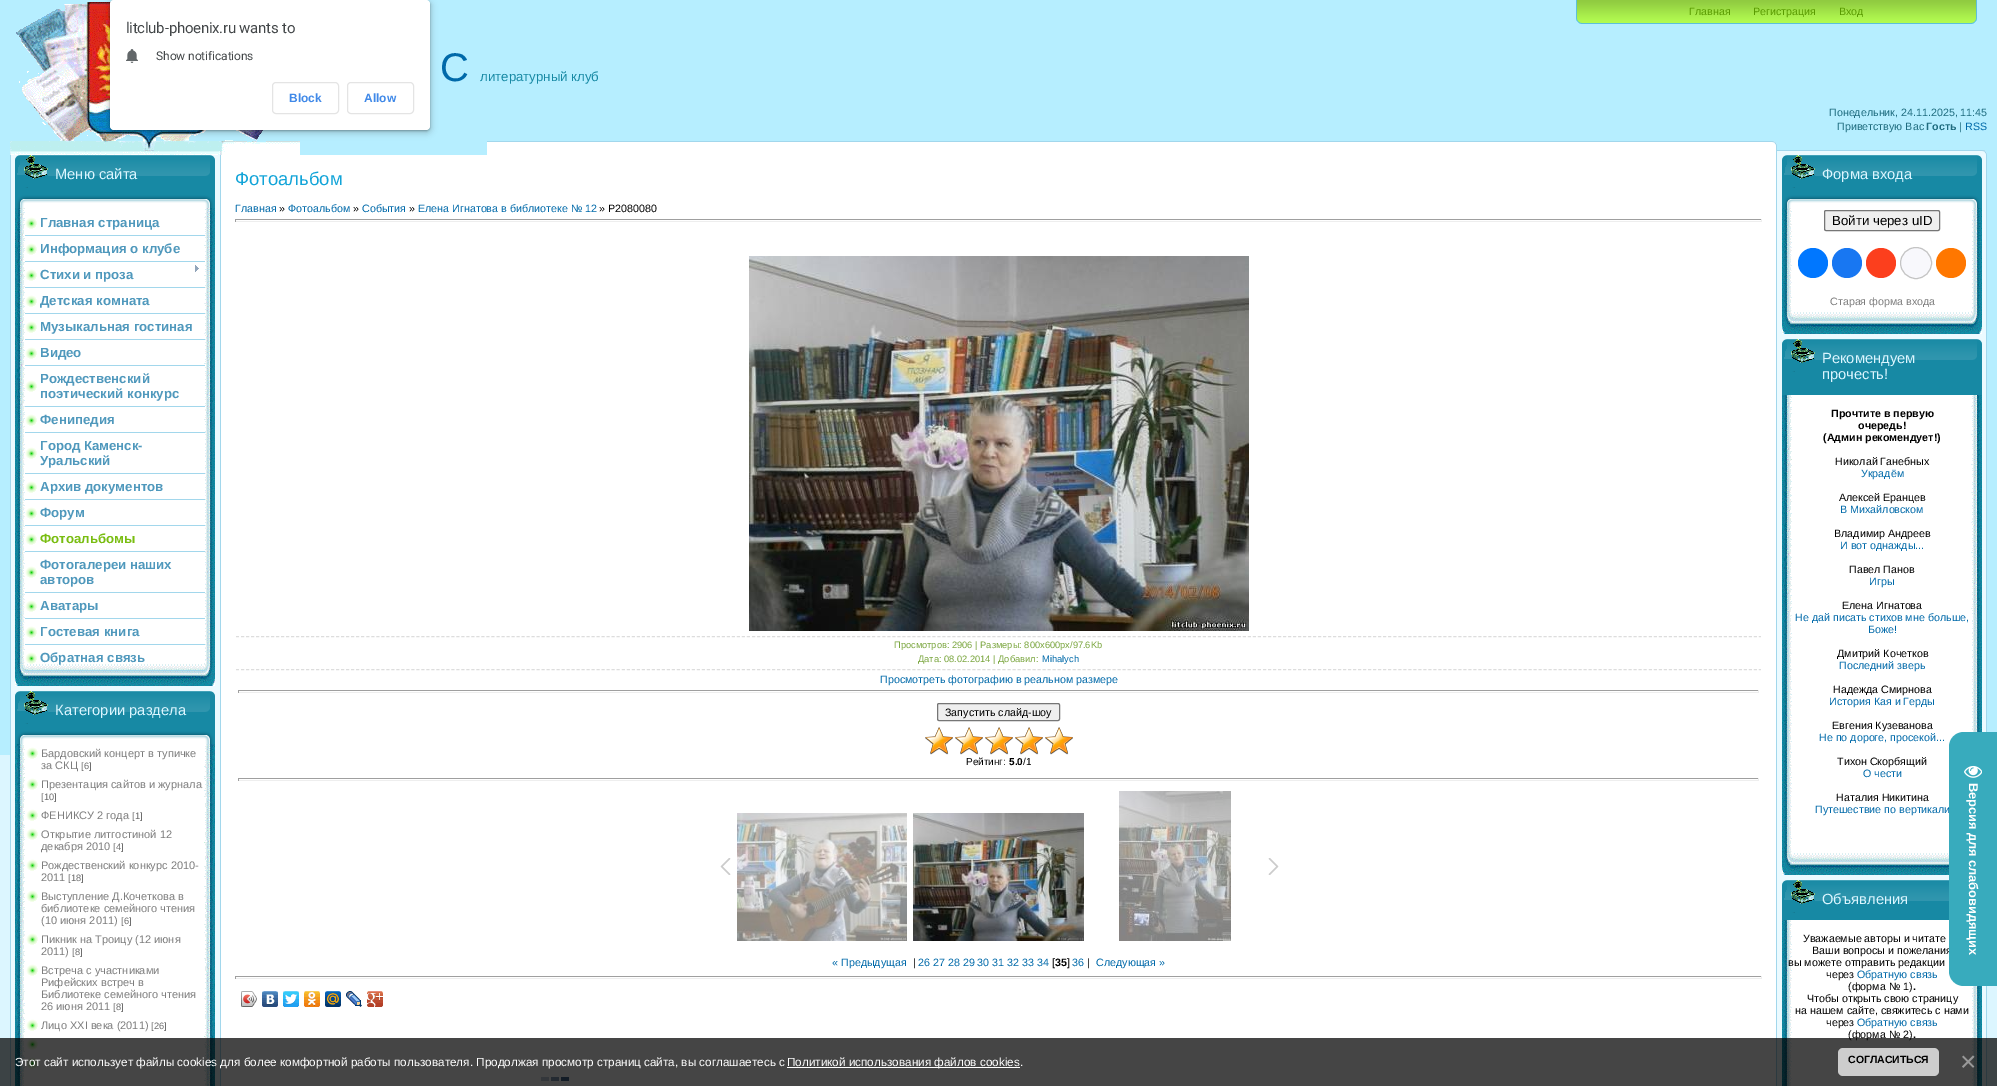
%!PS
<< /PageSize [1997 1086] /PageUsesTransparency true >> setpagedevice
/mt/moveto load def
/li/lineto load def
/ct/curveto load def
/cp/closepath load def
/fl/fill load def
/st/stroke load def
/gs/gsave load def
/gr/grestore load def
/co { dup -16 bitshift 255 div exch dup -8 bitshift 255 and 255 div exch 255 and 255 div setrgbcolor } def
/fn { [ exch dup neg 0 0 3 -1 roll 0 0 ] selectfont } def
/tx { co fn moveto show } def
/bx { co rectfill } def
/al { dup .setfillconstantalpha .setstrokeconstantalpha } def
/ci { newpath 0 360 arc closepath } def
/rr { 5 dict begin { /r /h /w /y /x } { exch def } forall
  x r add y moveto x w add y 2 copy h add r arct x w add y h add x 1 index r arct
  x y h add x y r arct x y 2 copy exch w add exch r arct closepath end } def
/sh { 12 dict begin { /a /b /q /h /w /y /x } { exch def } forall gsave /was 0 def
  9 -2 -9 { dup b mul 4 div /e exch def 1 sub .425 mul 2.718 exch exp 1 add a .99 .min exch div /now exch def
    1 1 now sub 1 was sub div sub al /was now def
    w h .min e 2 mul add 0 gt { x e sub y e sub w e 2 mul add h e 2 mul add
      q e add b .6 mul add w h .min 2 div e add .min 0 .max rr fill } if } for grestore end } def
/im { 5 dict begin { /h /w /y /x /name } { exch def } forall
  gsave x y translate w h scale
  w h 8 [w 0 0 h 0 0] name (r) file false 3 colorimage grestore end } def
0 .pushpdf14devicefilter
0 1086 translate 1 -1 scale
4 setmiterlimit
0 0 1997 1086 16#DCF6FF bx
0 0 1997 755 16#B6EEFF bx
(media/1.raw) 487 141 1500 14 im
(media/2.raw) 10 2 290 153 im
(media/3.raw) 1576 0 401 24 im
(media/4.raw) 10 155 215 931 im
(media/5.raw) 15 208 200 478 im
15 188 200 7 16#1789A4 bx
(media/6.raw) 15 155 200 33 im
(media/7.raw) 15 195 200 13 im
(media/8.raw) 25 217 12 12 im
25 235 180 1 16#A2D7EC bx
(media/8.raw) 25 243 12 12 im
25 261 180 1 16#A2D7EC bx
(media/8.raw) 25 269 12 12 im
25 287 180 1 16#A2D7EC bx
(media/9.raw) 195 265 4 7 im
(media/8.raw) 25 295 12 12 im
25 313 180 1 16#A2D7EC bx
(media/8.raw) 25 321 12 12 im
25 339 180 1 16#A2D7EC bx
(media/8.raw) 25 347 12 12 im
25 365 180 1 16#A2D7EC bx
(media/8.raw) 25 380 12 12 im
25 406 180 1 16#A2D7EC bx
(media/8.raw) 25 414 12 12 im
25 432 180 1 16#A2D7EC bx
(media/8.raw) 25 447 12 12 im
25 473 180 1 16#A2D7EC bx
(media/8.raw) 25 481 12 12 im
25 499 180 1 16#A2D7EC bx
(media/8.raw) 25 507 12 12 im
25 525 180 1 16#A2D7EC bx
(media/8.raw) 25 533 12 12 im
25 551 180 1 16#A2D7EC bx
(media/8.raw) 25 566 12 12 im
25 592 180 1 16#A2D7EC bx
(media/8.raw) 25 600 12 12 im
25 618 180 1 16#A2D7EC bx
(media/8.raw) 25 626 12 12 im
25 644 180 1 16#A2D7EC bx
(media/8.raw) 25 652 12 12 im
25 670 180 1 16#A2D7EC bx
(media/10.raw) 15 744 200 342 im
15 724 200 7 16#1789A4 bx
(media/6.raw) 15 691 200 33 im
(media/7.raw) 15 731 200 13 im
(media/8.raw) 26 747 12 12 im
(media/8.raw) 26 778 12 12 im
(media/8.raw) 26 809 12 12 im
(media/8.raw) 26 828 12 12 im
(media/8.raw) 26 859 12 12 im
(media/8.raw) 26 890 12 12 im
(media/8.raw) 26 933 12 12 im
(media/8.raw) 26 964 12 12 im
(media/8.raw) 26 1019 12 12 im
(media/8.raw) 26 1038 12 12 im
(media/8.raw) 26 1057 12 12 im
225 155 1547 931 16#FFFFFF bx
235 219 1527 1 16#9F9F9F bx
1761 219 1 3 16#EEEEEE bx
235 221 1527 1 16#EEEEEE bx
235 219 1 3 16#9F9F9F bx
(media/11.raw) 749 256 500 375 im
16#DDDDDD co
[3 2.01] 0 setdash
236 636.5 mt 1761 636.5 li st
236 669.5 mt 1761 669.5 li st
238 690 1521 1 16#9F9F9F bx
1758 690 1 3 16#EEEEEE bx
238 692 1521 1 16#EEEEEE bx
238 690 1 3 16#9F9F9F bx
16#EFEFEF co
937.5 703.5 122 17 1.5 rr gs fl gr
16#767676 co
[] 0 setdash
st
(media/12.raw) 925 727 148 28 im
(media/13.raw) 925 727 148 28 im
238 778 1521 1 16#9F9F9F bx
1758 778 1 3 16#EEEEEE bx
238 780 1521 1 16#EEEEEE bx
238 778 1 3 16#9F9F9F bx
(media/14.raw) 720 858 11 17 im
(media/15.raw) 737 813 170 128 im
(media/16.raw) 913 813 171 128 im
(media/17.raw) 1119 791 112 150 im
(media/18.raw) 1268 858 11 17 im
235 976 1527 1 16#9F9F9F bx
1761 976 1 3 16#EEEEEE bx
235 978 1527 1 16#EEEEEE bx
235 976 1 3 16#9F9F9F bx
(media/19.raw) 241 991 16 16 im
(media/20.raw) 241 991 16 16 im
(media/21.raw) 262 991 16 16 im
(media/22.raw) 283 991 16 16 im
(media/23.raw) 304 991 16 16 im
(media/24.raw) 325 991 16 16 im
(media/25.raw) 346 991 16 16 im
(media/26.raw) 367 991 16 16 im
(media/27.raw) 541 1077 28 4 im
(media/28.raw) 1772 155 215 931 im
(media/29.raw) 1782 208 200 126 im
1782 188 200 7 16#1789A4 bx
(media/6.raw) 1782 155 200 33 im
(media/7.raw) 1782 195 200 13 im
16#EFEFEF co
1824.5 210.5 115 20 1.5 rr gs fl gr
16#767676 co
st
16#0077FF co
1813 263 15 ci fl
16#1877F2 co
1847 263 15 ci fl
16#FC3F1D co
1881 263 15 ci fl
16#F8F8FC co
1916 263 15.5 ci gs fl gr
16#C4C4C4 co
st
16#FF7700 co
1951 263 15 ci fl
(media/30.raw) 1782 395 200 480 im
1782 372 200 23 16#1789A4 bx
(media/6.raw) 1782 339 200 33 im
(media/31.raw) 1782 920 200 166 im
1782 913 167 7 16#1789A4 bx
(media/32.raw) 1782 880 167 33 im
16#000000 co
108 0 324 134 6 3 .15 sh
110 1 320 130 4 1 .3 sh
16#FFFFFF co
110 0 320 130 4 rr fl
(media/33.raw) 126 49 12 14 im
16#E4E4E4 co
272.5 82.5 66 31 3.5 rr st
347.5 82.5 66 31 3.5 rr st
(Главная) 1689 15 /LiberationSans-Regular 10.7 16#599B00 tx
(Регистрация) 1753 15 /LiberationSans-Regular 10.7 16#599B00 tx
(Вход) 1839 15 /LiberationSans-Regular 10.7 16#599B00 tx
(С) 440 81 /LiberationSans-Regular 40 16#0069A9 tx
(литературный клуб) 480 81 /LiberationSans-Regular 13.25 16#1789A4 tx
(Понедельник, 24.11.2025, 11:45) 1829 116 /LiberationSans-Regular 10.7 16#1F6C7F tx
(Приветствую Вас) 1837 130 /LiberationSans-Regular 10.7 16#1F6C7F tx
(Гость) 1926 130 /LiberationSans-Bold 10.7 16#1F6C7F tx
(|) 1959 130 /LiberationSans-Regular 10.7 16#1F6C7F tx
(RSS) 1965 130 /LiberationSans-Regular 10.7 16#0069A9 tx
(Меню сайта) 55 179 /LiberationSans-Regular 14.75 16#DCF6FF tx
(Главная страница) 40 227 /LiberationSans-Bold 13.25 16#4F98BC tx
(Информация о клубе) 40 253 /LiberationSans-Bold 13.25 16#4F98BC tx
(Стихи и проза) 40 279 /LiberationSans-Bold 13.25 16#4F98BC tx
(Детская комната) 40 305 /LiberationSans-Bold 13.25 16#4F98BC tx
(Музыкальная гостиная) 40 331 /LiberationSans-Bold 13.25 16#4F98BC tx
(Видео) 40 357 /LiberationSans-Bold 13.25 16#4F98BC tx
(Рождественский) 40 383 /LiberationSans-Bold 13.25 16#4F98BC tx
(поэтический конкурс) 40 398 /LiberationSans-Bold 13.25 16#4F98BC tx
(Фенипедия) 40 424 /LiberationSans-Bold 13.25 16#4F98BC tx
(Город Каменск-) 40 450 /LiberationSans-Bold 13.25 16#4F98BC tx
(Уральский) 40 465 /LiberationSans-Bold 13.25 16#4F98BC tx
(Архив документов) 40 491 /LiberationSans-Bold 13.25 16#4F98BC tx
(Форум) 40 517 /LiberationSans-Bold 13.25 16#4F98BC tx
(Фотоальбомы) 40 543 /LiberationSans-Bold 13.25 16#79BD11 tx
(Фотогалереи наших) 40 569 /LiberationSans-Bold 13.25 16#4F98BC tx
(авторов) 40 584 /LiberationSans-Bold 13.25 16#4F98BC tx
(Аватары) 40 610 /LiberationSans-Bold 13.25 16#4F98BC tx
(Гостевая книга) 40 636 /LiberationSans-Bold 13.25 16#4F98BC tx
(Обратная связь) 40 662 /LiberationSans-Bold 13.25 16#4F98BC tx
(Категории раздела) 55 715 /LiberationSans-Regular 14.75 16#DCF6FF tx
(Бардовский концерт в тупичке) 41 757 /LiberationSans-Regular 11 16#7D7D7D tx
(за СКЦ) 41 769 /LiberationSans-Regular 11 16#7D7D7D tx
([6]) 81 769 /LiberationSans-Regular 9.3 16#6E6E6E tx
(Презентация сайтов и журнала) 41 788 /LiberationSans-Regular 11 16#7D7D7D tx
([10]) 41 800 /LiberationSans-Regular 9.3 16#6E6E6E tx
(ФЕНИКСУ 2 года) 41 819 /LiberationSans-Regular 11 16#7D7D7D tx
([1]) 132 819 /LiberationSans-Regular 9.3 16#6E6E6E tx
(Открытие литгостиной 12) 41 838 /LiberationSans-Regular 11 16#7D7D7D tx
(декабря 2010) 41 850 /LiberationSans-Regular 11 16#7D7D7D tx
([4]) 113 850 /LiberationSans-Regular 9.3 16#6E6E6E tx
(Рождественский конкурс 2010-) 41 869 /LiberationSans-Regular 11 16#7D7D7D tx
(2011) 41 881 /LiberationSans-Regular 11 16#7D7D7D tx
([18]) 68 881 /LiberationSans-Regular 9.3 16#6E6E6E tx
(Выступление Д.Кочеткова в) 41 900 /LiberationSans-Regular 11 16#7D7D7D tx
(библиотеке семейного чтения) 41 912 /LiberationSans-Regular 11 16#7D7D7D tx
(\(10 июня 2011\)) 41 924 /LiberationSans-Regular 11 16#7D7D7D tx
([6]) 121 924 /LiberationSans-Regular 9.3 16#6E6E6E tx
(Пикник на Троицу \(12 июня) 41 943 /LiberationSans-Regular 11 16#7D7D7D tx
(2011\)) 41 955 /LiberationSans-Regular 11 16#7D7D7D tx
([8]) 72 955 /LiberationSans-Regular 9.3 16#6E6E6E tx
(Встреча с участниками) 41 974 /LiberationSans-Regular 11 16#7D7D7D tx
(Рифейских встреч в) 41 986 /LiberationSans-Regular 11 16#7D7D7D tx
(Библиотеке семейного чтения) 41 998 /LiberationSans-Regular 11 16#7D7D7D tx
(26 июня 2011) 41 1010 /LiberationSans-Regular 11 16#7D7D7D tx
([8]) 113 1010 /LiberationSans-Regular 9.3 16#6E6E6E tx
(Лицо XXI века \(2011\)) 41 1029 /LiberationSans-Regular 11 16#7D7D7D tx
([26]) 151 1029 /LiberationSans-Regular 9.3 16#6E6E6E tx
(Фотоальбом) 235 185 /LiberationSans-Regular 18.5 16#12A4D8 tx
(Главная) 235 212 /LiberationSans-Regular 10.7 16#0069A9 tx
(») 279 212 /LiberationSans-Regular 10.7 16#000000 tx
(Фотоальбом) 288 212 /LiberationSans-Regular 10.7 16#0069A9 tx
(») 353 212 /LiberationSans-Regular 10.7 16#000000 tx
(События) 362 212 /LiberationSans-Regular 10.7 16#0069A9 tx
(») 409 212 /LiberationSans-Regular 10.7 16#000000 tx
(Елена Игнатова в библиотеке № 12) 418 212 /LiberationSans-Regular 10.7 16#0069A9 tx
(» P2080080) 599 212 /LiberationSans-Regular 10.7 16#000000 tx
(Просмотров: 2906 | Размеры: 800x600px/97.6Kb) 894 648 /LiberationSans-Regular 9.3 16#79A53D tx
(Дата: 08.02.2014 | Добавил:) 918 662 /LiberationSans-Regular 9.3 16#79A53D tx
(Mihalych) 1042 662 /LiberationSans-Regular 9.3 16#0069A9 tx
(Просмотреть фотографию в реальном размере) 880 683 /LiberationSans-Regular 10.7 16#0069A9 tx
(Запустить слайд-шоу) 945 716 /LiberationSans-Regular 10.7 16#000000 tx
(Рейтинг:) 966 765 /LiberationSans-Regular 10 16#000000 tx
(5.0) 1009 765 /LiberationSans-Bold 10 16#000000 tx
(/1) 1023 765 /LiberationSans-Regular 10 16#000000 tx
(« Предыдущая) 832 966 /LiberationSans-Regular 10.7 16#0069A9 tx
(|) 913 966 /LiberationSans-Regular 10.7 16#000000 tx
(26 27 28 29 30 31 32 33 34) 918 966 /LiberationSans-Regular 10.7 16#0069A9 tx
([) 1052 966 /LiberationSans-Regular 10.7 16#000000 tx
(35) 1055 966 /LiberationSans-Bold 10.7 16#000000 tx
(]) 1067 966 /LiberationSans-Regular 10.7 16#000000 tx
(36) 1072 966 /LiberationSans-Regular 10.7 16#0069A9 tx
(|) 1087 966 /LiberationSans-Regular 10.7 16#000000 tx
(Следующая ») 1096 966 /LiberationSans-Regular 10.7 16#0069A9 tx
(Форма входа) 1822 179 /LiberationSans-Regular 14.75 16#DCF6FF tx
(Войти через uID) 1832 225 /LiberationSans-Regular 13.25 16#000000 tx
(Старая форма входа) 1830 305 /LiberationSans-Regular 10.7 16#7D7D7D tx
(Рекомендуем) 1822 363 /LiberationSans-Regular 14.75 16#DCF6FF tx
(прочесть!) 1822 379 /LiberationSans-Regular 14.75 16#DCF6FF tx
(Прочтите в первую) 1831 417 /LiberationSans-Bold 10.7 16#000000 tx
(очередь!) 1858 429 /LiberationSans-Bold 10.7 16#000000 tx
(\(Админ рекомендует!\)) 1823 441 /LiberationSans-Bold 10.7 16#000000 tx
(Николай Ганебных) 1835 465 /LiberationSans-Regular 10.7 16#000000 tx
(Украдём) 1861 477 /LiberationSans-Regular 10.7 16#0069A9 tx
(Алексей Еранцев) 1839 501 /LiberationSans-Regular 10.7 16#000000 tx
(В Михайловском) 1840 513 /LiberationSans-Regular 10.7 16#0069A9 tx
(Владимир Андреев) 1834 537 /LiberationSans-Regular 10.7 16#000000 tx
(И вот однажды...) 1840 549 /LiberationSans-Regular 10.7 16#0069A9 tx
(Павел Панов) 1849 573 /LiberationSans-Regular 10.7 16#000000 tx
(Игры) 1869 585 /LiberationSans-Regular 10.7 16#0069A9 tx
(Елена Игнатова) 1842 609 /LiberationSans-Regular 10.7 16#000000 tx
(Не дай писать стихов мне больше,) 1795 621 /LiberationSans-Regular 10.7 16#0069A9 tx
(Боже!) 1868 633 /LiberationSans-Regular 10.7 16#0069A9 tx
(Дмитрий Кочетков) 1837 657 /LiberationSans-Regular 10.7 16#000000 tx
(Последний зверь) 1839 669 /LiberationSans-Regular 10.7 16#0069A9 tx
(Надежда Смирнова) 1833 693 /LiberationSans-Regular 10.7 16#000000 tx
(История Кая и Герды) 1829 705 /LiberationSans-Regular 10.7 16#0069A9 tx
(Евгения Кузеванова) 1832 729 /LiberationSans-Regular 10.7 16#000000 tx
(Не по дороге, просекой...) 1819 741 /LiberationSans-Regular 10.7 16#0069A9 tx
(Тихон Скорбящий) 1837 765 /LiberationSans-Regular 10.7 16#000000 tx
(О чести) 1863 777 /LiberationSans-Regular 10.7 16#0069A9 tx
(Наталия Никитина) 1836 801 /LiberationSans-Regular 10.7 16#000000 tx
(Путешествие по вертикали) 1815 813 /LiberationSans-Regular 10.7 16#0069A9 tx
(Объявления) 1822 904 /LiberationSans-Regular 14.75 16#DCF6FF tx
(Уважаемые авторы и читате) 1803 942 /LiberationSans-Regular 10.7 16#000000 tx
(Ваши вопросы и пожелания) 1812 954 /LiberationSans-Regular 10.7 16#000000 tx
(вы можете отправить редакции) 1788 966 /LiberationSans-Regular 10.7 16#000000 tx
(через) 1826 978 /LiberationSans-Regular 10.7 16#000000 tx
(Обратную связь) 1857 978 /LiberationSans-Regular 10.7 16#0069A9 tx
(\(форма № 1\)) 1848 990 /LiberationSans-Regular 10.7 16#000000 tx
(.) 1913 990 /LiberationSans-Bold 10.7 16#000000 tx
(Чтобы открыть свою страницу) 1807 1002 /LiberationSans-Regular 10.7 16#000000 tx
(на нашем сайте, свяжитесь с нами) 1795 1014 /LiberationSans-Regular 10.7 16#000000 tx
(через) 1826 1026 /LiberationSans-Regular 10.7 16#000000 tx
(Обратную связь) 1857 1026 /LiberationSans-Regular 10.7 16#0069A9 tx
(\(форма № 2\)) 1848 1038 /LiberationSans-Regular 10.7 16#000000 tx
(.) 1913 1038 /LiberationSans-Bold 10.7 16#000000 tx
/Roboto-Regular 15 fn
16#434749 co
126 33 mt -.25 0 (litclub-phoenix.ru wants to) ashow
/Roboto-Regular 12 fn
156 60 mt -.1 0 (Show notifications) ashow
(Block) 289 102 /LiberationSans-Bold 12 16#4089E8 tx
(Allow) 364 102 /LiberationSans-Bold 12 16#4089E8 tx
16#38ABBD co
1964 732 mt 1997 732 li 1997 986 li 1964 986 li 1955.5 986 1949 979.5 1949 971 ct 1949 747 li 1949 738.5 1955.5 732 1964 732 ct cp fl
(media/34.raw) 1964 765 18 13 im
/LiberationSans-Bold 12.75 fn
16#FFFFFF co
gs 1969 783 translate 90 rotate 0 0 mt (Версия для слабовидящих) show gr
0.73 al
0 1038 1997 48 16#000000 bx
1 al
(Этот сайт использует файлы cookies для более комфортной работы пользователя. Продолжая просмотр страниц сайта, вы соглашаетесь с) 15 1066 /LiberationSans-Regular 11.73 16#FFFFFF tx
787 1067 233 1 16#FFFFFF bx
(Политикой использования файлов cookies.) 787 1066 /LiberationSans-Regular 11.73 16#FFFFFF tx
0.73 al
1838 1048 101 28 5 rr fl
1 al
(СОГЛАСИТЬСЯ) 1848 1063 /LiberationSans-Bold 10.5 16#000000 tx
(×) 1960 1071 /LiberationSans-Regular 28 16#999999 tx
.poppdf14devicefilter showpage
